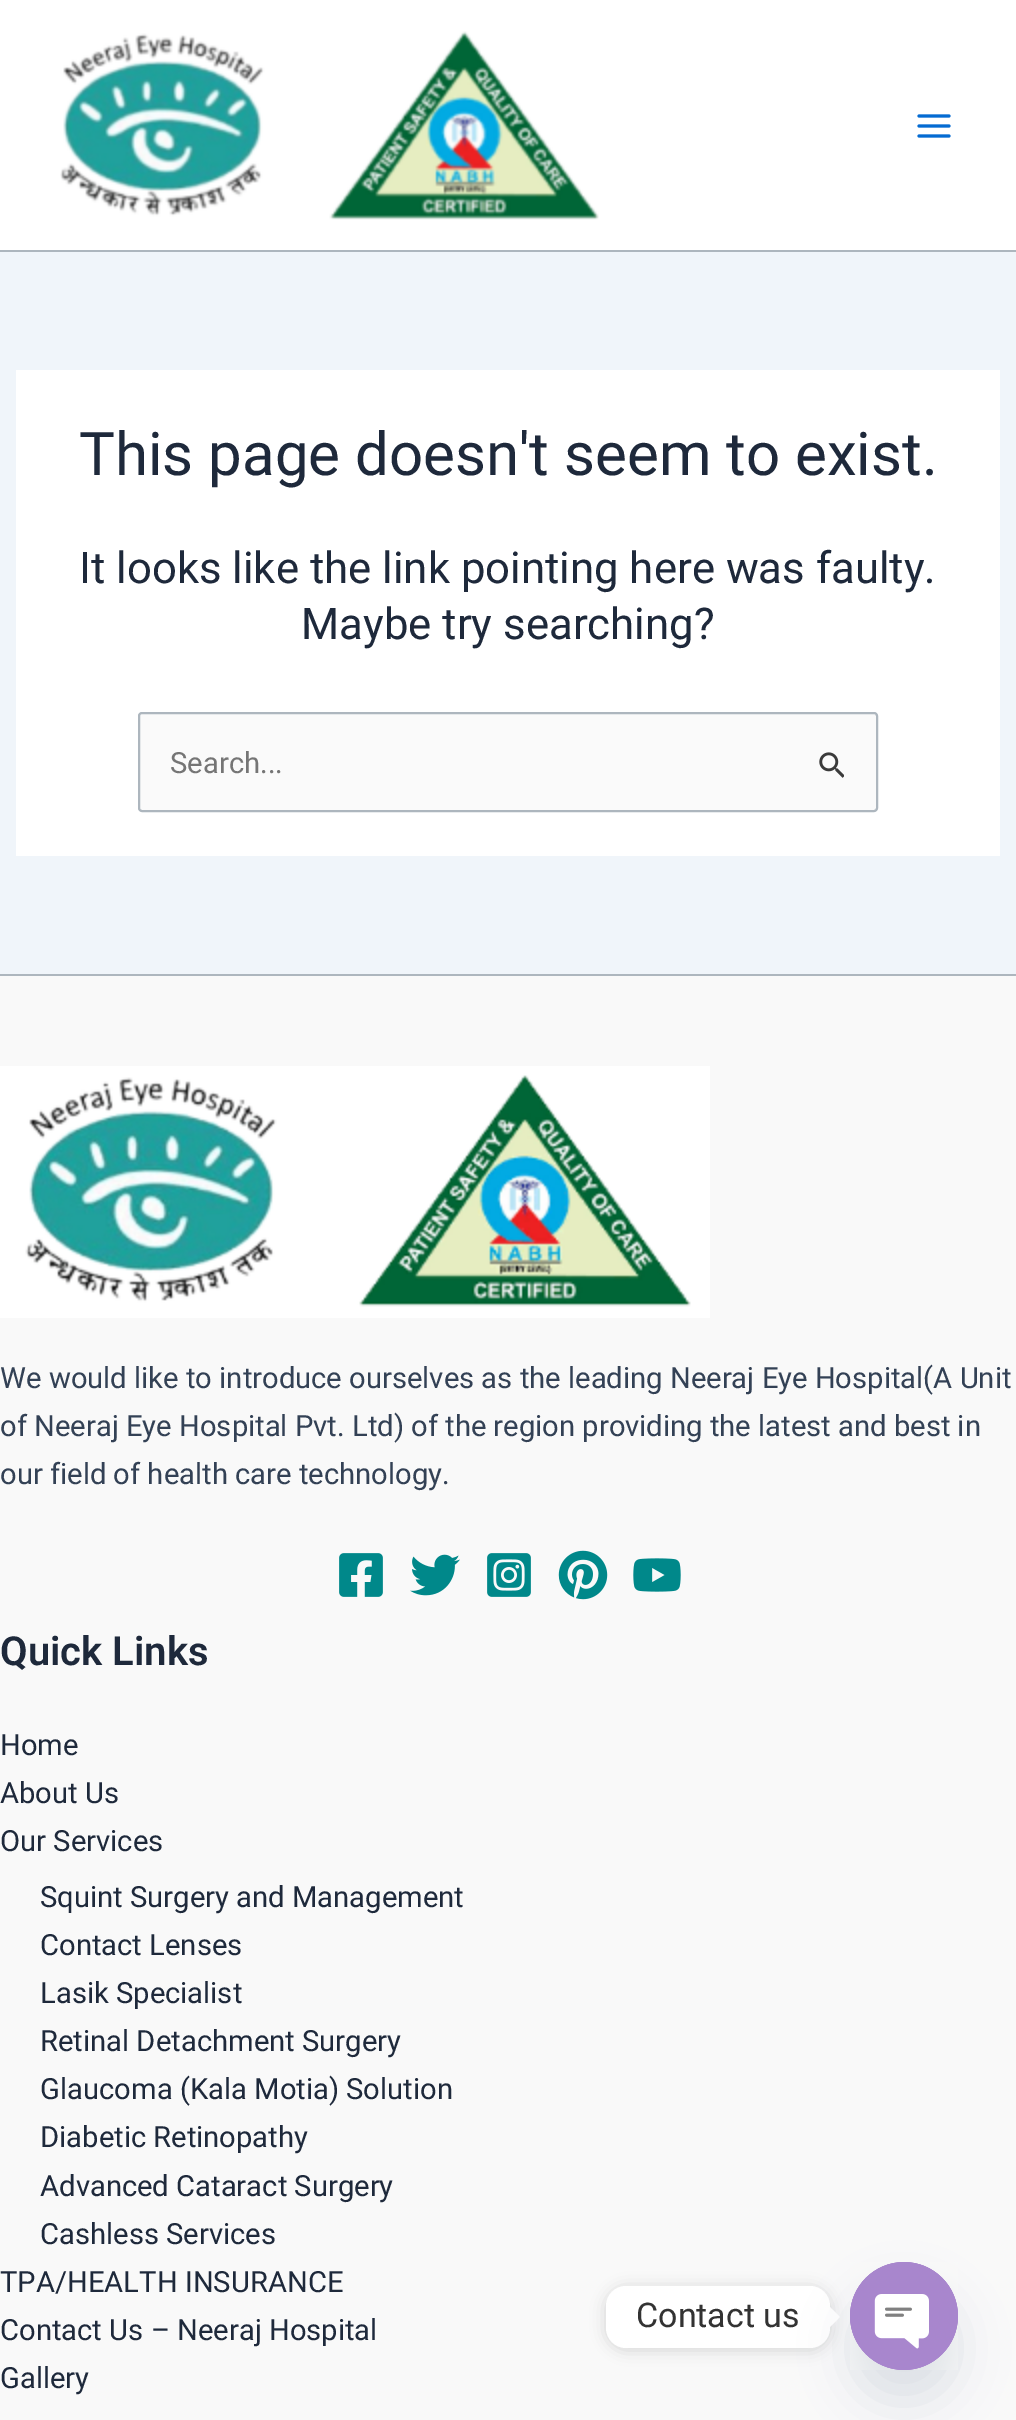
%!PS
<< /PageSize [1016 2420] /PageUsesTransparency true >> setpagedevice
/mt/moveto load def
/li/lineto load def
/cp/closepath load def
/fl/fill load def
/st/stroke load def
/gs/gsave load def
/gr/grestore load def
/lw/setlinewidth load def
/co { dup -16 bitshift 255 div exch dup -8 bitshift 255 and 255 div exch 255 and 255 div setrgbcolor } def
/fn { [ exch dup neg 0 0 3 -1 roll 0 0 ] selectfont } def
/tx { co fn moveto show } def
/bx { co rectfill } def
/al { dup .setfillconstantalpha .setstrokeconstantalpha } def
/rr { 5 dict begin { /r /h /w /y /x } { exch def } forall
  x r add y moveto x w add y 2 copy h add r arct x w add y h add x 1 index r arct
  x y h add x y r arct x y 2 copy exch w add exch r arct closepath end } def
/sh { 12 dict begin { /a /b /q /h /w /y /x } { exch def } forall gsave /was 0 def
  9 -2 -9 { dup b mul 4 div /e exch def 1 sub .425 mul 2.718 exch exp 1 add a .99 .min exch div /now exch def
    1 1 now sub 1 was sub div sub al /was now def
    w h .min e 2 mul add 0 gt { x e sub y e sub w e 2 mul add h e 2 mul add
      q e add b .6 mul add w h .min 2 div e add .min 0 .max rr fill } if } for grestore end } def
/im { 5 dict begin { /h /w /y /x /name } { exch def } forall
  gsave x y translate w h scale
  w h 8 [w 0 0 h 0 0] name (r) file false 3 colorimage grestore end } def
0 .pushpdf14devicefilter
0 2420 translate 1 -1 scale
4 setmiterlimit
0 0 1016 2420 16#F0F5FA bx
0 0 1016 250 16#FFFFFF bx
0 250 1016 2 16#ADB6BE bx
(media/1.raw) 60 31 539 189 im
(media/2.raw) 917 114 34 24 im
16 370 984 486 16#FFFFFF bx
16#FAFAFA co
139 713 738 98 3 rr gs fl gr
16#ADB6BE co
2 lw
st
(media/3.raw) 819 752 25 26 im
0 976 1016 1444 16#F9F9F9 bx
0 974 1016 2 16#ADB6BE bx
(media/4.raw) 0 1066 710 252 im
(media/5.raw) 339 1553 44 44 im
(media/6.raw) 410 1554 50 42 im
(media/7.raw) 487 1553 44 44 im
(media/8.raw) 558 1550 50 50 im
(media/9.raw) 633 1558 48 34 im
16#000000 co
606 2288 224 62 20 7.5 .15 sh
16#FFFFFF co
606 2286 224 62 20 rr fl
830 2327 mt 830 2307 li 840 2317 li cp fl
16#49687E co
850 2294 108 108 54 24 .16 sh
(media/10.raw) 850 2262 108 108 im
(This page doesn't seem to exist.) 79 475 /Roboto-Regular 60 16#1E293B tx
(It looks like the link pointing here was faulty.) 79 583 /Roboto-Regular 43.75 16#1E293B tx
(Maybe try searching?) 301 639 /Roboto-Regular 43.75 16#1E293B tx
(Search...) 170 773 /Roboto-Regular 29.2 16#757575 tx
(We would like to introduce ourselves as the leading Neeraj Eye Hospital\(A Unit) 0 1388 /Roboto-Regular 29.2 16#334155 tx
(of Neeraj Eye Hospital Pvt. Ltd\) of the region providing the latest and best in) 0 1436 /Roboto-Regular 29.2 16#334155 tx
(our field of health care technology.) 0 1484 /Roboto-Regular 29.2 16#334155 tx
(Quick Links) 0 1665 /Roboto-SemiBold 40 16#1E293B tx
(Home) 0 1755 /Roboto-Regular 29.2 16#1E293B tx
(About Us) 0 1803 /Roboto-Regular 29.2 16#1E293B tx
(Our Services) 0 1851 /Roboto-Regular 29.2 16#1E293B tx
(Squint Surgery and Management) 40 1907 /Roboto-Regular 29.2 16#1E293B tx
(Contact Lenses) 40 1955 /Roboto-Regular 29.2 16#1E293B tx
(Lasik Specialist) 40 2003 /Roboto-Regular 29.2 16#1E293B tx
(Retinal Detachment Surgery) 40 2051 /Roboto-Regular 29.2 16#1E293B tx
(Glaucoma \(Kala Motia\) Solution) 40 2099 /Roboto-Regular 29.2 16#1E293B tx
(Diabetic Retinopathy) 40 2147 /Roboto-Regular 29.2 16#1E293B tx
(Advanced Cataract Surgery) 40 2196 /Roboto-Regular 29.2 16#1E293B tx
(Cashless Services) 40 2244 /Roboto-Regular 29.2 16#1E293B tx
(TPA/HEALTH INSURANCE) 0 2292 /Roboto-Regular 29.2 16#1E293B tx
(Contact Us – Neeraj Hospital) 0 2340 /Roboto-Regular 29.2 16#1E293B tx
(Gallery) 0 2388 /Roboto-Regular 29.2 16#1E293B tx
(Contact us) 636 2327 /Roboto-Regular 34 16#333333 tx
.poppdf14devicefilter showpage
